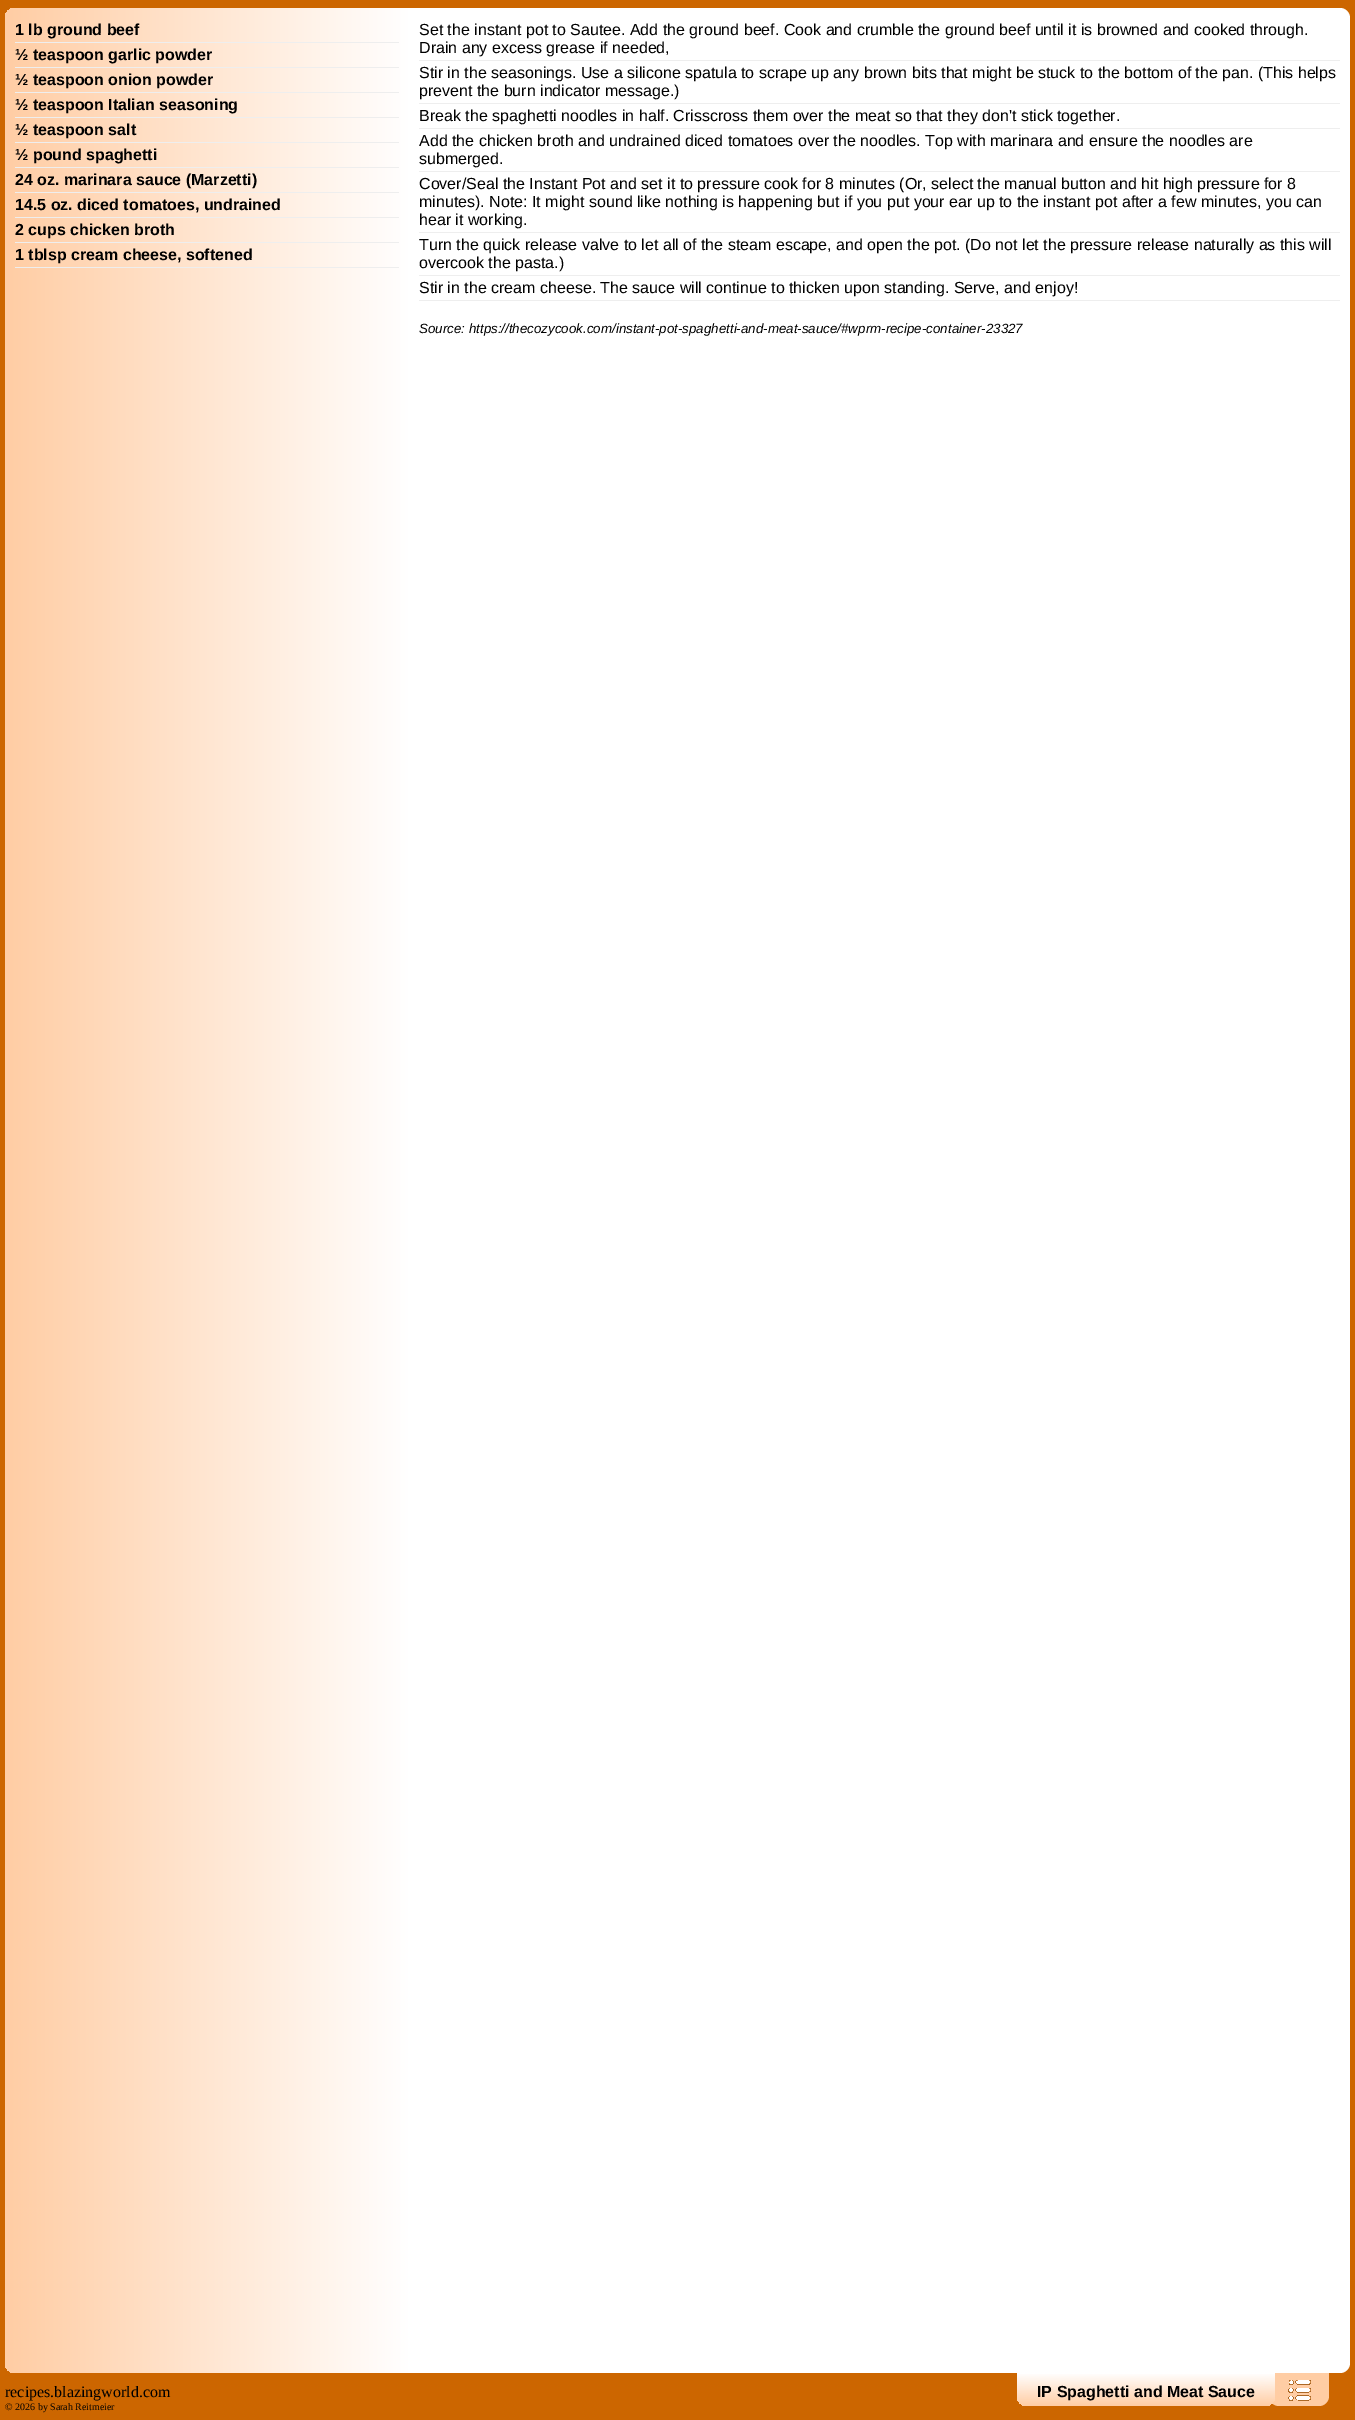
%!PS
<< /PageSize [1355 2420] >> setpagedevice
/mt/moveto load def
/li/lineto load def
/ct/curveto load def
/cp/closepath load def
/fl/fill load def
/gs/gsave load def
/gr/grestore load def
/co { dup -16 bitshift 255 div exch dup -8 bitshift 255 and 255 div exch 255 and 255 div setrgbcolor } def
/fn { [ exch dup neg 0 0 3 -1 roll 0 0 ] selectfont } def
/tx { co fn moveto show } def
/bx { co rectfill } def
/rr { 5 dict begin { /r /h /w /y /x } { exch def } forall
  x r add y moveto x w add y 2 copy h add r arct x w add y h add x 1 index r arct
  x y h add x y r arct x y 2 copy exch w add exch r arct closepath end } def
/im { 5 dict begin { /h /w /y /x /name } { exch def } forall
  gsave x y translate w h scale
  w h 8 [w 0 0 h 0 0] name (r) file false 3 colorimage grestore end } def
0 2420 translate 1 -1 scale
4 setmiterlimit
0 0 1355 2420 16#CC6600 bx
16#FFFFFF co
5 8 1345 2365 10 rr fl
gs 15 8 mt 409 8 li 409 2373 li 15 2373 li 9.5 2373 5 2368.5 5 2363 ct 5 18 li 5 12.5 9.5 8 15 8 ct cp clip newpath
<< /ShadingType 2 /ColorSpace /DeviceRGB /Coords [5 1191 409 1191] /Extend [true true] /Function << /FunctionType 2 /Domain [0 1] /C0 [1 .804 .643] /C1 [1 1 1] /N 1 >> >> shfill gr
15 42 384 1 16#EEEEEE bx
15 67 384 1 16#EEEEEE bx
15 92 384 1 16#EEEEEE bx
15 117 384 1 16#EEEEEE bx
15 142 384 1 16#EEEEEE bx
15 167 384 1 16#EEEEEE bx
15 192 384 1 16#EEEEEE bx
15 217 384 1 16#EEEEEE bx
15 242 384 1 16#EEEEEE bx
15 267 384 1 16#EEEEEE bx
419 60 921 1 16#EEEEEE bx
419 103 921 1 16#EEEEEE bx
419 128 921 1 16#EEEEEE bx
419 171 921 1 16#EEEEEE bx
419 232 921 1 16#EEEEEE bx
419 275 921 1 16#EEEEEE bx
419 300 921 1 16#EEEEEE bx
16#FFCDA4 co
1269 2373 mt 1329 2373 li 1329 2396 li 1329 2401.5 1324.5 2406 1319 2406 ct 1279 2406 li 1273.5 2406 1269 2401.5 1269 2396 ct cp fl
gs 1017 2373 mt 1275 2373 li 1275 2396 li 1275 2401.5 1270.5 2406 1265 2406 ct 1027 2406 li 1021.5 2406 1017 2401.5 1017 2396 ct cp clip newpath
<< /ShadingType 2 /ColorSpace /DeviceRGB /Coords [1146 2406 1146 2373] /Extend [true true] /Function << /FunctionType 2 /Domain [0 1] /C0 [1 .804 .643] /C1 [1 1 1] /N 1 >> >> shfill gr
(media/1.raw) 1288 2380 23 21 im
(1 lb ground beef) 15 35 /LiberationSans-Bold 16 16#000000 tx
(½ teaspoon garlic powder) 15 60 /LiberationSans-Bold 16 16#000000 tx
(½ teaspoon onion powder) 15 85 /LiberationSans-Bold 16 16#000000 tx
(½ teaspoon Italian seasoning) 15 110 /LiberationSans-Bold 16 16#000000 tx
(½ teaspoon salt) 15 135 /LiberationSans-Bold 16 16#000000 tx
(½ pound spaghetti) 15 160 /LiberationSans-Bold 16 16#000000 tx
(24 oz. marinara sauce \(Marzetti\)) 15 185 /LiberationSans-Bold 16 16#000000 tx
(14.5 oz. diced tomatoes, undrained) 15 210 /LiberationSans-Bold 16 16#000000 tx
(2 cups chicken broth) 15 235 /LiberationSans-Bold 16 16#000000 tx
(1 tblsp cream cheese, softened) 15 260 /LiberationSans-Bold 16 16#000000 tx
(Set the instant pot to Sautee. Add the ground beef. Cook and crumble the ground beef until it is browned and cooked through.) 419 35 /LiberationSans-Regular 16 16#000000 tx
(Drain any excess grease if needed,) 419 53 /LiberationSans-Regular 16 16#000000 tx
(Stir in the seasonings. Use a silicone spatula to scrape up any brown bits that might be stuck to the bottom of the pan. \(This helps) 419 78 /LiberationSans-Regular 16 16#000000 tx
(prevent the burn indicator message.\)) 419 96 /LiberationSans-Regular 16 16#000000 tx
(Break the spaghetti noodles in half. Crisscross them over the meat so that they don't stick together.) 419 121 /LiberationSans-Regular 16 16#000000 tx
(Add the chicken broth and undrained diced tomatoes over the noodles. Top with marinara and ensure the noodles are) 419 146 /LiberationSans-Regular 16 16#000000 tx
(submerged.) 419 164 /LiberationSans-Regular 16 16#000000 tx
(Cover/Seal the Instant Pot and set it to pressure cook for 8 minutes \(Or, select the manual button and hit high pressure for 8) 419 189 /LiberationSans-Regular 16 16#000000 tx
(minutes\). Note: It might sound like nothing is happening but if you put your ear up to the instant pot after a few minutes, you can) 419 207 /LiberationSans-Regular 16 16#000000 tx
(hear it working.) 419 225 /LiberationSans-Regular 16 16#000000 tx
(Turn the quick release valve to let all of the steam escape, and open the pot. \(Do not let the pressure release naturally as this will) 419 250 /LiberationSans-Regular 16 16#000000 tx
(overcook the pasta.\)) 419 268 /LiberationSans-Regular 16 16#000000 tx
(Stir in the cream cheese. The sauce will continue to thicken upon standing. Serve, and enjoy!) 419 293 /LiberationSans-Regular 16 16#000000 tx
(Source: https://thecozycook.com/instant-pot-spaghetti-and-meat-sauce/#wprm-recipe-container-23327) 419 333 /LiberationSans-Italic 13.35 16#000000 tx
(IP Spaghetti and Meat Sauce) 1037 2397 /LiberationSans-Bold 16 16#000000 tx
(recipes.blazingworld.com) 5 2397 /LiberationSerif-Regular 16 16#000000 tx
(© 2026 by Sarah Reitmeier) 5 2410 /LiberationSerif-Regular 10 16#000000 tx
showpage
